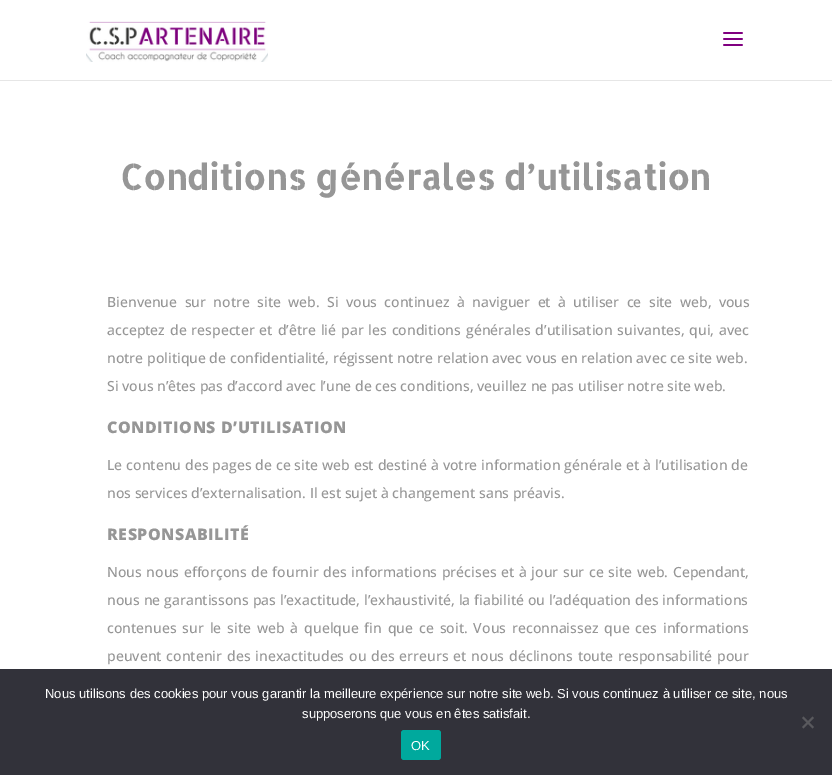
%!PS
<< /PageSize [832 775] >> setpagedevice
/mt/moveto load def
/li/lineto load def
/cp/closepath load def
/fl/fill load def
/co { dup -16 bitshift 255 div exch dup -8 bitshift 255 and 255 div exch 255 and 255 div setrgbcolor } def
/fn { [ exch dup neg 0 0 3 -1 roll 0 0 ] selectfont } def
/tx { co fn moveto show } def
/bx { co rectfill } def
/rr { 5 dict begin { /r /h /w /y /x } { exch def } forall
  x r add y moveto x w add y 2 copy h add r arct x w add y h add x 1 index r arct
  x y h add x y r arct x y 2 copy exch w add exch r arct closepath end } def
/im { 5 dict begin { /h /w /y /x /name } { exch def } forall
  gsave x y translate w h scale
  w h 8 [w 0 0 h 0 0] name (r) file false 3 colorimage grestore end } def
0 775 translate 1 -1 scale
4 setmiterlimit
0 0 832 775 16#FFFFFF bx
0 80 832 1 16#E6E6E6 bx
(media/1.raw) 86 21 182 41 im
(media/2.raw) 723 32 20 14 im
0 669 832 106 16#32323A bx
16#59595D co
812.5 716.5 mt 814 718 li 803.5 728.5 li 802 727 li cp fl
802 718 mt 803.5 716.5 li 814 727 li 812.5 728.5 li cp fl
16#00A99D co
401 730 40 30 3 rr fl
(Conditions générales d’utilisation) 120 190 /AllertaStencil-Bold 35 16#969696 tx
/OpenSans-Medium 14 fn
107 307 mt 3.75 0 32 (Bienvenue sur notre site web. Si vous continuez à naviguer et à utiliser ce site web, vous) widthshow
107 335 mt 1.25 0 32 (acceptez de respecter et d’être lié par les conditions générales d’utilisation suivantes, qui, avec) widthshow
(notre politique de confidentialité, régissent notre relation avec vous en relation avec ce site web.) 107 363 /OpenSans-Medium 14 16#969696 tx
(Si vous n’êtes pas d’accord avec l’une de ces conditions, veuillez ne pas utiliser notre site web.) 107 391 /OpenSans-Medium 14 16#969696 tx
/OpenSans-ExtraBold 16 fn
107 433 mt .5 0 (CONDITIONS D’UTILISATION) ashow
/OpenSans-Medium 14 fn
107 470 mt .3 0 32 (Le contenu des pages de ce site web est destiné à votre information générale et à l’utilisation de) widthshow
(nos services d’externalisation. Il est sujet à changement sans préavis.) 107 498 /OpenSans-Medium 14 16#969696 tx
/OpenSans-ExtraBold 16 fn
107 540 mt .5 0 (RESPONSABILITÉ) ashow
/OpenSans-Medium 14 fn
107 577 mt 1 0 32 (Nous nous efforçons de fournir des informations précises et à jour sur ce site web. Cependant,) widthshow
107 605 mt .3 0 32 (nous ne garantissons pas l’exactitude, l’exhaustivité, la fiabilité ou l’adéquation des informations) widthshow
107 633 mt 2.25 0 32 (contenues sur le site web à quelque fin que ce soit. Vous reconnaissez que ces informations) widthshow
107 661 mt 1.25 0 32 (peuvent contenir des inexactitudes ou des erreurs et nous déclinons toute responsabilité pour) widthshow
(Nous utilisons des cookies pour vous garantir la meilleure expérience sur notre site web. Si vous continuez à utiliser ce site, nous) 45 698 /LiberationSans-Regular 13 16#FFFFFF tx
(supposerons que vous en êtes satisfait.) 302 718 /LiberationSans-Regular 13 16#FFFFFF tx
(OK) 411 750 /LiberationSans-Regular 13 16#FFFFFF tx
showpage
